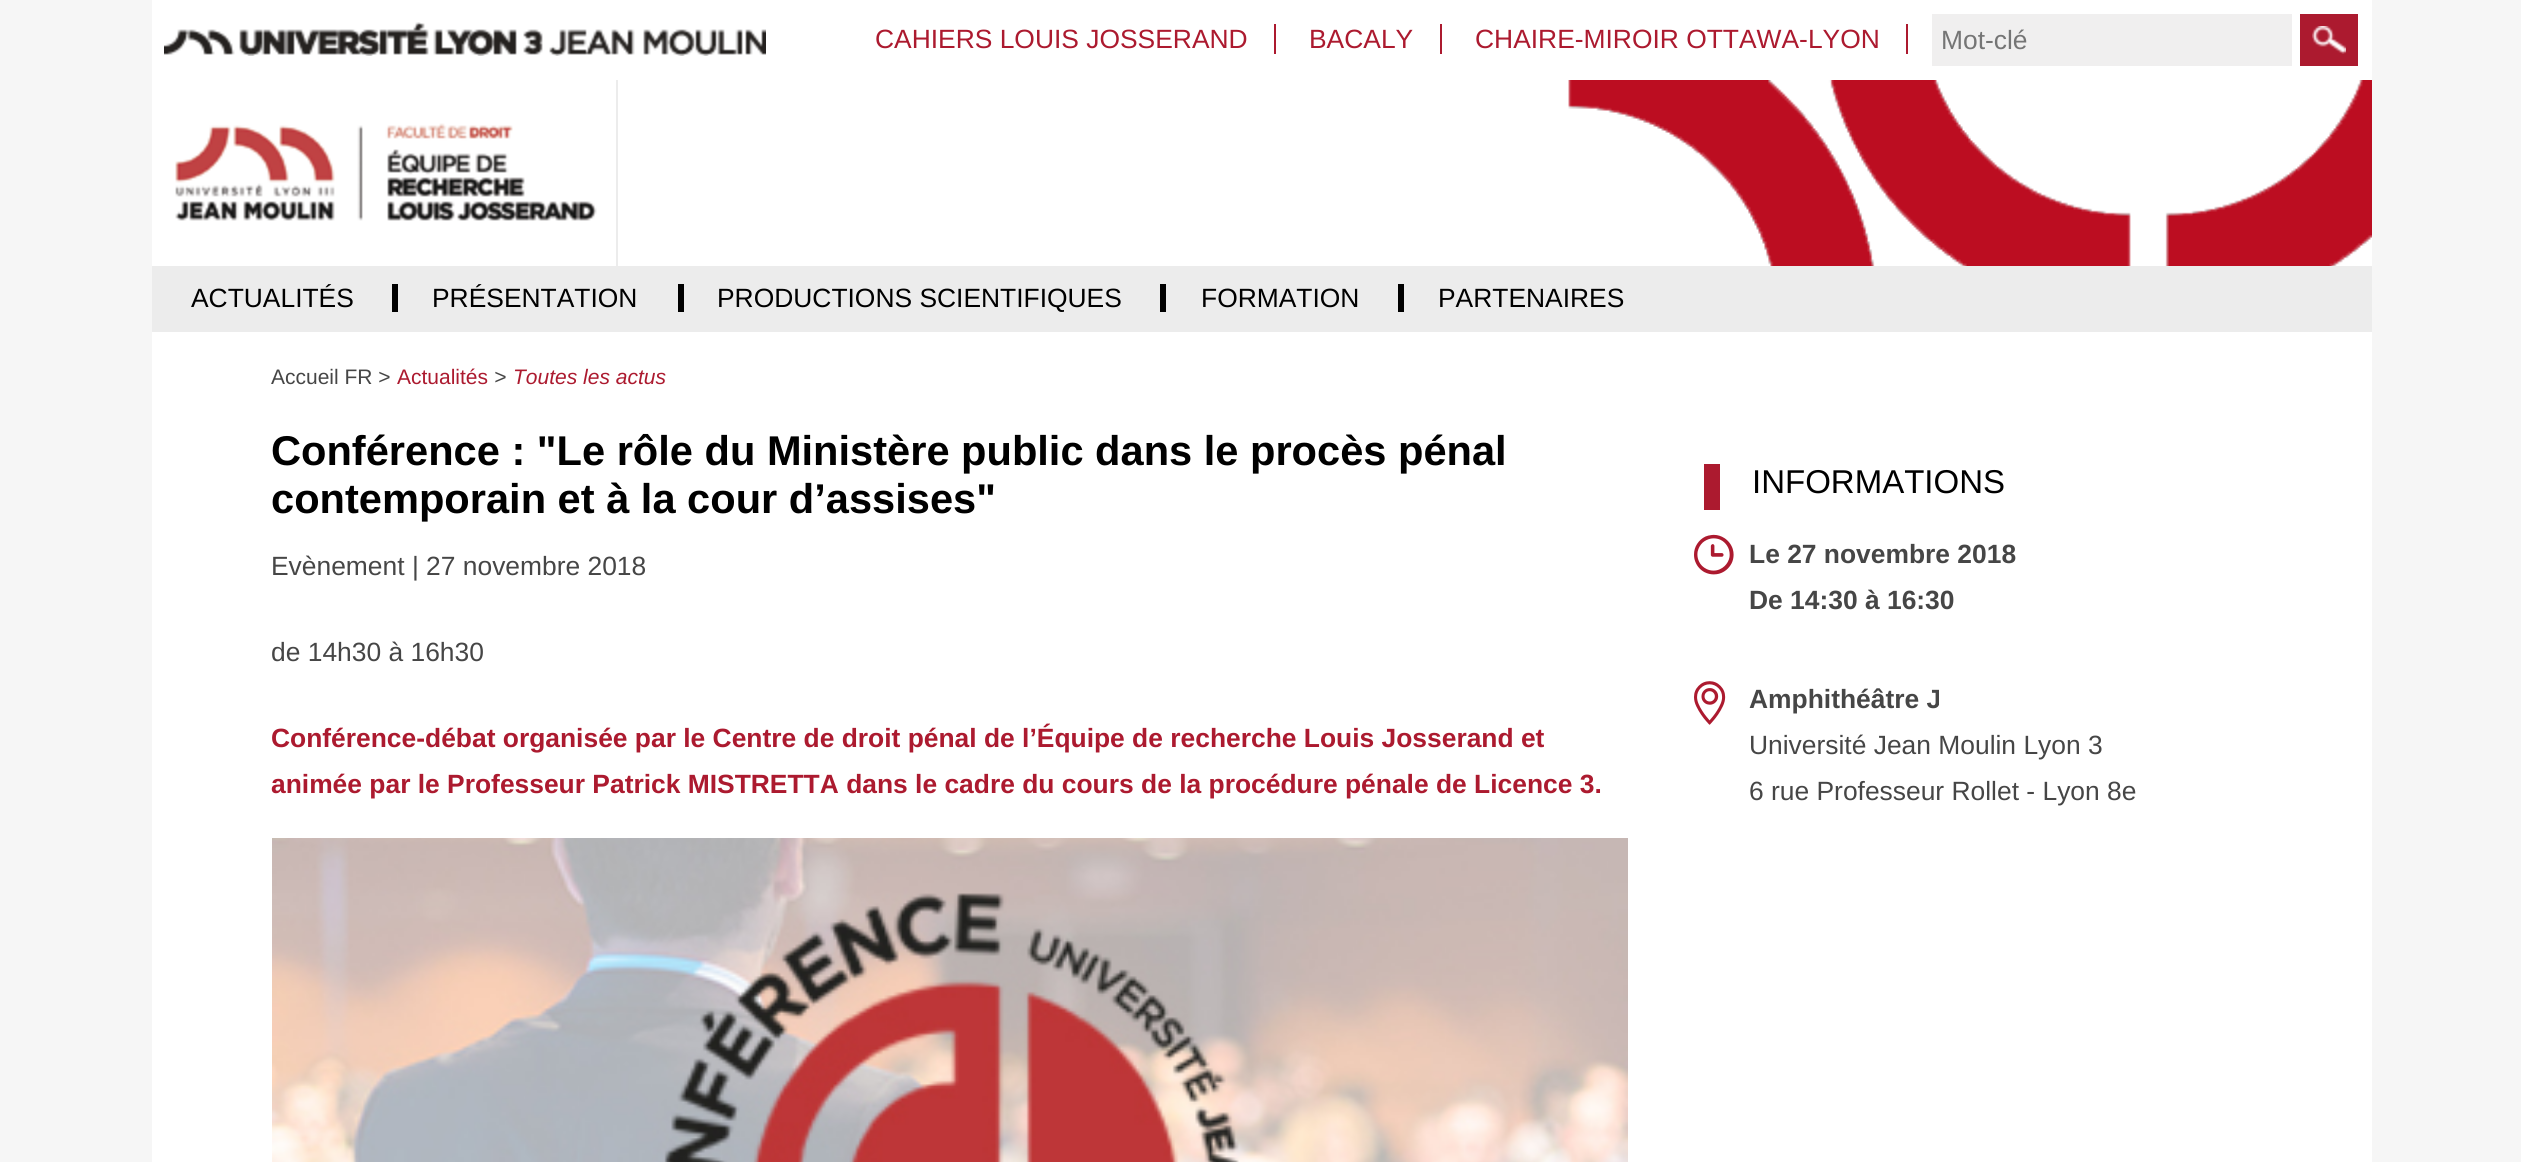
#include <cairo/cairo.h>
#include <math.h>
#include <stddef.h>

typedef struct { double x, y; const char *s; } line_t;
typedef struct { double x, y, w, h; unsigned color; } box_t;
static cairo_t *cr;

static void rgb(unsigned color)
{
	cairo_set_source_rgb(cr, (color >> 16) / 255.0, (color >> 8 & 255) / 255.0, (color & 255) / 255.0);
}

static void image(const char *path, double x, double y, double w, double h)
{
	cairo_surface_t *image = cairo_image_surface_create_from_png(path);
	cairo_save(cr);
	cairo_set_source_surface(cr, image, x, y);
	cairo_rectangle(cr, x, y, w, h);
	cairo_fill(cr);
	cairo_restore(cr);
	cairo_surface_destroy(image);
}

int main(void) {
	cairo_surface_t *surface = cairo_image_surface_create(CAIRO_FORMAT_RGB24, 2521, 1162);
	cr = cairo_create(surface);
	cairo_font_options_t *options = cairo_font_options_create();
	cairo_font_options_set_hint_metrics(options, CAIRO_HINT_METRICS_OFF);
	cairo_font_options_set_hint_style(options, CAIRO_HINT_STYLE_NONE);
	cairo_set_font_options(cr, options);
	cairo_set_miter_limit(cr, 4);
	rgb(0xf6f6f6);
	cairo_paint(cr);
	rgb(0xffffff);
	cairo_rectangle(cr, 152, 0, 2220, 266);
	cairo_fill(cr);
	image("img/1.png", 164, 22, 602, 34);
	{
		static const box_t items[] = {
			{1274, 24, 2, 30, 0xac1a2f},
			{1440, 24, 2, 30, 0xac1a2f},
			{1906, 24, 2, 30, 0xac1a2f},
			{1932, 14, 360, 52, 0xf0efef},
			{2300, 14, 58, 52, 0xac1a2f},
		};
		for (size_t i = 0; i < sizeof items / sizeof *items; i++) {
			rgb(items[i].color);
			cairo_rectangle(cr, items[i].x, items[i].y, items[i].w, items[i].h);
			cairo_fill(cr);
		}
	}
	image("img/2.png", 2312, 26, 34, 28);
	rgb(0xececec);
	cairo_rectangle(cr, 616, 80, 2, 186);
	cairo_fill(cr);
	image("img/3.png", 175, 123, 422, 98);
	image("img/4.png", 1568, 80, 804, 186);
	{
		static const box_t items[] = {
			{152, 266, 2220, 66, 0xececec},
			{392, 284, 6, 28, 0x000000},
			{678, 284, 6, 28, 0x000000},
			{1160, 284, 6, 28, 0x000000},
			{1398, 284, 6, 28, 0x000000},
			{152, 332, 2220, 830, 0xffffff},
		};
		for (size_t i = 0; i < sizeof items / sizeof *items; i++) {
			rgb(items[i].color);
			cairo_rectangle(cr, items[i].x, items[i].y, items[i].w, items[i].h);
			cairo_fill(cr);
		}
	}
	image("img/5.png", 272, 838, 1356, 324);
	rgb(0xac1a2f);
	cairo_rectangle(cr, 1704, 464, 16, 46);
	cairo_fill(cr);
	image("img/6.png", 1694, 534, 40, 41);
	image("img/7.png", 1694, 681, 32, 44);
	cairo_select_font_face(cr, "Liberation Sans", CAIRO_FONT_SLANT_NORMAL, CAIRO_FONT_WEIGHT_NORMAL);
	cairo_set_font_size(cr, 26.4);
	{
		static const line_t items[] = {
			{875, 48, "CAHIERS LOUIS JOSSERAND"},
			{1309, 48, "BACALY"},
			{1475, 48, "CHAIRE-MIROIR OTTAWA-LYON"},
		};
		for (size_t i = 0; i < sizeof items / sizeof *items; i++) {
			cairo_move_to(cr, items[i].x, items[i].y);
			cairo_show_text(cr, items[i].s);
		}
	}
	rgb(0x757575);
	cairo_move_to(cr, 1941, 49);
	cairo_show_text(cr, "Mot-clé");
	rgb(0x000000);
	{
		static const line_t items[] = {
			{191, 307, "ACTUALITÉS"},
			{432, 307, "PRÉSENTATION"},
			{717, 307, "PRODUCTIONS SCIENTIFIQUES"},
			{1201, 307, "FORMATION"},
			{1438, 307, "PARTENAIRES"},
		};
		for (size_t i = 0; i < sizeof items / sizeof *items; i++) {
			cairo_move_to(cr, items[i].x, items[i].y);
			cairo_show_text(cr, items[i].s);
		}
	}
	cairo_set_font_size(cr, 21);
	rgb(0x464646);
	cairo_move_to(cr, 271, 384);
	cairo_show_text(cr, "Accueil FR >");
	rgb(0xac1a2f);
	cairo_move_to(cr, 397, 384);
	cairo_show_text(cr, "Actualités");
	cairo_select_font_face(cr, "Liberation Sans", CAIRO_FONT_SLANT_ITALIC, CAIRO_FONT_WEIGHT_NORMAL);
	rgb(0x464646);
	cairo_move_to(cr, 494, 384);
	cairo_show_text(cr, ">");
	rgb(0xac1a2f);
	cairo_move_to(cr, 513, 384);
	cairo_show_text(cr, "Toutes les actus");
	cairo_select_font_face(cr, "Liberation Sans", CAIRO_FONT_SLANT_NORMAL, CAIRO_FONT_WEIGHT_BOLD);
	cairo_set_font_size(cr, 41.6);
	rgb(0x000000);
	cairo_move_to(cr, 271, 465);
	cairo_show_text(cr, "Conférence : \"Le rôle du Ministère public dans le procès pénal");
	cairo_move_to(cr, 271, 513);
	cairo_show_text(cr, "contemporain et à la cour d’assises\"");
	cairo_select_font_face(cr, "Liberation Sans", CAIRO_FONT_SLANT_NORMAL, CAIRO_FONT_WEIGHT_NORMAL);
	cairo_set_font_size(cr, 26.4);
	rgb(0x464646);
	cairo_move_to(cr, 271, 575);
	cairo_show_text(cr, "Evènement | 27 novembre 2018");
	cairo_move_to(cr, 271, 661);
	cairo_show_text(cr, "de 14h30 à 16h30");
	cairo_select_font_face(cr, "Liberation Sans", CAIRO_FONT_SLANT_NORMAL, CAIRO_FONT_WEIGHT_BOLD);
	rgb(0xac1a2f);
	cairo_move_to(cr, 271, 747);
	cairo_show_text(cr, "Conférence-débat organisée par le Centre de droit pénal de l’Équipe de recherche Louis Josserand et");
	cairo_move_to(cr, 271, 793);
	cairo_show_text(cr, "animée par le Professeur Patrick MISTRETTA dans le cadre du cours de la procédure pénale de Licence 3.");
	cairo_select_font_face(cr, "Liberation Sans", CAIRO_FONT_SLANT_NORMAL, CAIRO_FONT_WEIGHT_NORMAL);
	cairo_set_font_size(cr, 33);
	rgb(0x000000);
	cairo_move_to(cr, 1752, 493);
	cairo_show_text(cr, "INFORMATIONS");
	cairo_select_font_face(cr, "Liberation Sans", CAIRO_FONT_SLANT_NORMAL, CAIRO_FONT_WEIGHT_BOLD);
	cairo_set_font_size(cr, 26.4);
	rgb(0x464646);
	{
		static const line_t items[] = {
			{1749, 563, "Le 27 novembre 2018"},
			{1749, 609, "De 14:30 à 16:30"},
			{1749, 708, "Amphithéâtre J"},
		};
		for (size_t i = 0; i < sizeof items / sizeof *items; i++) {
			cairo_move_to(cr, items[i].x, items[i].y);
			cairo_show_text(cr, items[i].s);
		}
	}
	cairo_select_font_face(cr, "Liberation Sans", CAIRO_FONT_SLANT_NORMAL, CAIRO_FONT_WEIGHT_NORMAL);
	cairo_move_to(cr, 1749, 754);
	cairo_show_text(cr, "Université Jean Moulin Lyon 3");
	cairo_move_to(cr, 1749, 800);
	cairo_show_text(cr, "6 rue Professeur Rollet - Lyon 8e");
	cairo_surface_write_to_png(surface, "page.png");
	cairo_font_options_destroy(options);
	cairo_destroy(cr);
	cairo_surface_destroy(surface);
	return 0;
}
